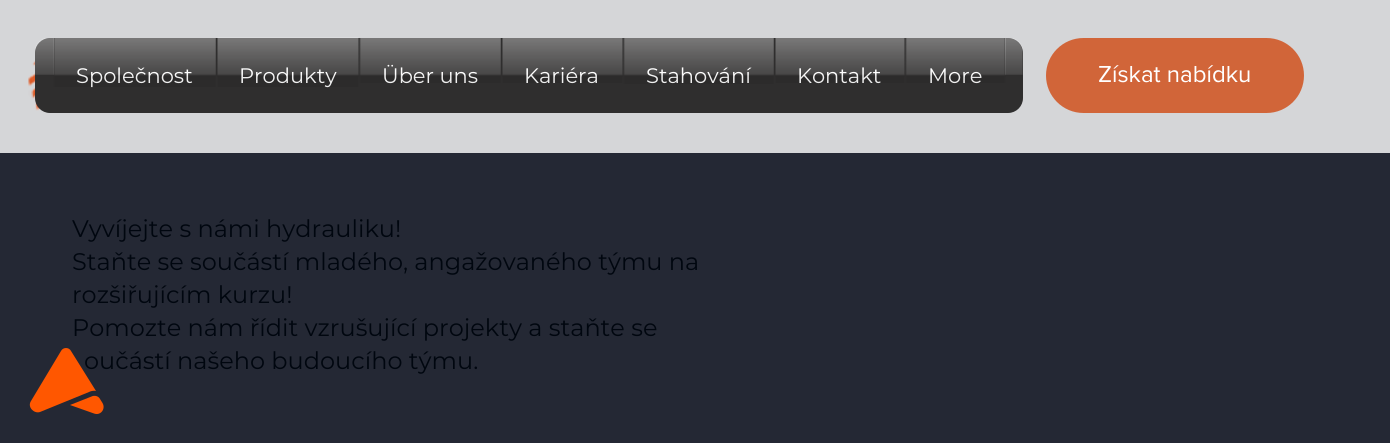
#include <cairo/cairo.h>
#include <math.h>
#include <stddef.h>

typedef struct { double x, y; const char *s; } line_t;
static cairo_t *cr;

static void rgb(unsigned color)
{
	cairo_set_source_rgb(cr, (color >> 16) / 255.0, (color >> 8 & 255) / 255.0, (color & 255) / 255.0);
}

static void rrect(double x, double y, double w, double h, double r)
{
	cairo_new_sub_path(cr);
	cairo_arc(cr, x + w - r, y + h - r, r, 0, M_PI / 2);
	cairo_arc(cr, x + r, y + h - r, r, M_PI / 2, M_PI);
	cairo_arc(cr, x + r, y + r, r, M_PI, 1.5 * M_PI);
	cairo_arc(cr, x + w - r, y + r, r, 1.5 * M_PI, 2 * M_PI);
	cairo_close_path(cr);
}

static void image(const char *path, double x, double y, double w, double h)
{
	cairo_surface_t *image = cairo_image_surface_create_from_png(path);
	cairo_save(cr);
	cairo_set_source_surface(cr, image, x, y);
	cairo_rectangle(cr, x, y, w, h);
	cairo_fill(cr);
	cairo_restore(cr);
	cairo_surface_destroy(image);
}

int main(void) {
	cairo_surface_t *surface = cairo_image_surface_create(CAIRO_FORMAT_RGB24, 1390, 443);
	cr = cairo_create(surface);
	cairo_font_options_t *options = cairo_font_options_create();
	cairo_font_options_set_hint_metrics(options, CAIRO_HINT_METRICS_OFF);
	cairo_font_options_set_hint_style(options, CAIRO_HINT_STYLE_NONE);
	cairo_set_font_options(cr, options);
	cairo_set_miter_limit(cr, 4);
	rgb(0x242834);
	cairo_paint(cr);
	rgb(0xd5d6d8);
	cairo_rectangle(cr, 0, 0, 1390, 153);
	cairo_fill(cr);
	image("img/1.png", 28, 61, 12, 50);
	rgb(0x2f2e2e);
	rrect(35, 38, 988, 75, 15);
	cairo_fill(cr);
	image("img/2.png", 35, 38, 988, 37);
	cairo_rectangle(cr, 54, 38, 951, 37);
	cairo_fill(cr);
	rgb(0xd16539);
	rrect(1046, 38, 258, 75, 37.5);
	cairo_fill(cr);
	cairo_select_font_face(cr, "Montserrat", CAIRO_FONT_SLANT_NORMAL, CAIRO_FONT_WEIGHT_NORMAL);
	cairo_set_font_size(cr, 21);
	rgb(0xffffff);
	cairo_move_to(cr, 76, 83);
	cairo_show_text(cr, "Společnost");
	image("img/3.png", 53, 38, 163, 49);
	cairo_move_to(cr, 239, 83);
	cairo_show_text(cr, "Produkty");
	image("img/4.png", 217, 37, 142, 50);
	cairo_move_to(cr, 382, 83);
	cairo_show_text(cr, "Über uns");
	image("img/5.png", 359, 38, 142, 45);
	cairo_move_to(cr, 524, 83);
	cairo_show_text(cr, "Kariéra");
	image("img/6.png", 502, 38, 121, 45);
	cairo_move_to(cr, 646, 83);
	cairo_show_text(cr, "Stahování");
	image("img/7.png", 623, 38, 151, 46);
	cairo_move_to(cr, 797, 83);
	cairo_show_text(cr, "Kontakt");
	image("img/8.png", 775, 38, 130, 45);
	cairo_move_to(cr, 928, 83);
	cairo_show_text(cr, "More");
	image("img/9.png", 905, 38, 101, 45);
	cairo_select_font_face(cr, "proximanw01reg", CAIRO_FONT_SLANT_NORMAL, CAIRO_FONT_WEIGHT_NORMAL);
	cairo_set_font_size(cr, 24);
	cairo_move_to(cr, 1098, 82);
	cairo_show_text(cr, "Získat nabídku");
	cairo_select_font_face(cr, "Montserrat", CAIRO_FONT_SLANT_NORMAL, CAIRO_FONT_WEIGHT_NORMAL);
	rgb(0x00060f);
	{
		static const line_t items[] = {
			{72, 237, "Vyvíjejte s námi hydrauliku!"},
			{72, 270, "Staňte se součástí mladého, angažovaného týmu na"},
			{72, 303, "rozšiřujícím kurzu!"},
			{72, 336, "Pomozte nám řídit vzrušující projekty a staňte se"},
			{84, 369, "oučástí našeho budoucího týmu."},
		};
		for (size_t i = 0; i < sizeof items / sizeof *items; i++) {
			cairo_move_to(cr, items[i].x, items[i].y);
			cairo_show_text(cr, items[i].s);
		}
	}
	rgb(0xff5700);
	cairo_new_path(cr);
	cairo_move_to(cr, 96, 391);
	cairo_line_to(cr, 71, 351);
	cairo_curve_to(cr, 69, 347, 63, 347, 61, 351);
	cairo_line_to(cr, 31, 401);
	cairo_curve_to(cr, 27, 407, 34, 414, 40, 412);
	cairo_line_to(cr, 89, 392);
	cairo_curve_to(cr, 93, 390, 96, 391, 96, 391);
	cairo_close_path(cr);
	cairo_fill(cr);
	cairo_new_path(cr);
	cairo_move_to(cr, 102.5, 403);
	cairo_line_to(cr, 100, 399);
	cairo_curve_to(cr, 98.5, 396, 94.5, 395, 91.5, 396.5);
	cairo_line_to(cr, 70, 405);
	cairo_line_to(cr, 94, 413.5);
	cairo_curve_to(cr, 100.5, 416, 106, 409, 102.5, 403);
	cairo_close_path(cr);
	cairo_fill(cr);
	cairo_surface_write_to_png(surface, "page.png");
	cairo_font_options_destroy(options);
	cairo_destroy(cr);
	cairo_surface_destroy(surface);
	return 0;
}
